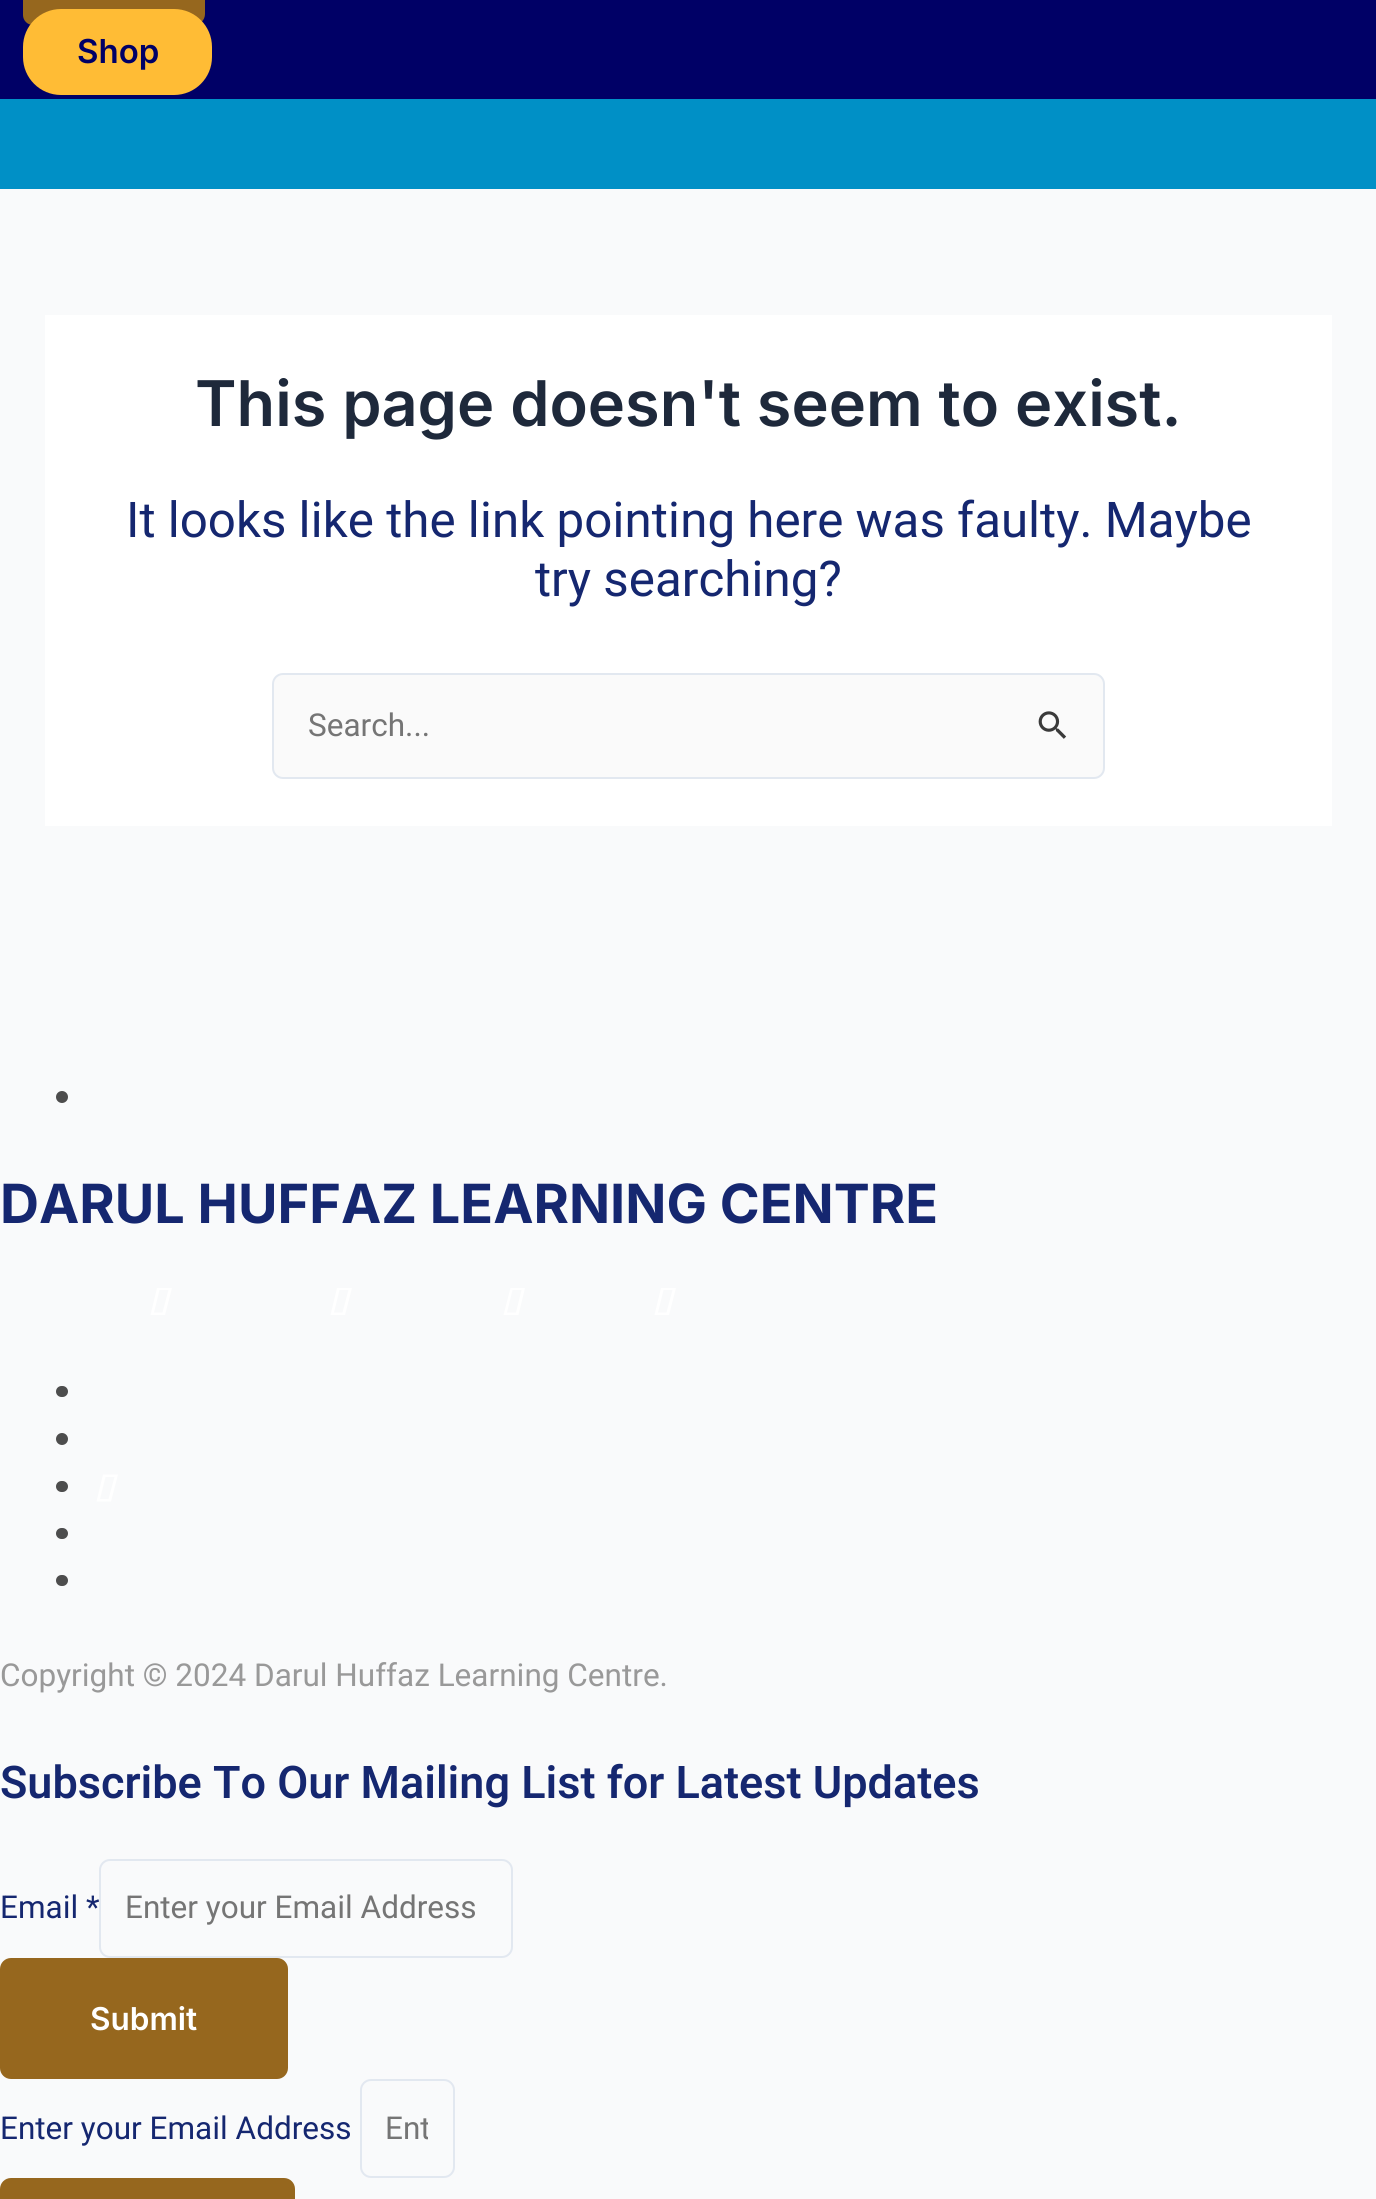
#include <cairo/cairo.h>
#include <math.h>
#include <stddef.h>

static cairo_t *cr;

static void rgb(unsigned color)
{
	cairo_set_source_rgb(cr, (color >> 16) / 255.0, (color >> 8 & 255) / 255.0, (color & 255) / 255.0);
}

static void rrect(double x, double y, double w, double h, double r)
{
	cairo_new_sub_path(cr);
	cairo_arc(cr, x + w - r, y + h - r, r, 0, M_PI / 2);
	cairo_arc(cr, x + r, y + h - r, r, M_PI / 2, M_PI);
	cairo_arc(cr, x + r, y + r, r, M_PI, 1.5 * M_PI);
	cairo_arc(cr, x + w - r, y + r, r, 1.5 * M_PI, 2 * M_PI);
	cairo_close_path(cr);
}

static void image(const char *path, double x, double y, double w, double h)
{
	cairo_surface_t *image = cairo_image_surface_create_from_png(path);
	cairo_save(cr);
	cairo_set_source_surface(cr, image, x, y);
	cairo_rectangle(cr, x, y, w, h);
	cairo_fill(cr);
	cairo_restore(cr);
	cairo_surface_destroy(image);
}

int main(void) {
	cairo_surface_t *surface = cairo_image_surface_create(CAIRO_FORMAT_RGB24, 1376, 2199);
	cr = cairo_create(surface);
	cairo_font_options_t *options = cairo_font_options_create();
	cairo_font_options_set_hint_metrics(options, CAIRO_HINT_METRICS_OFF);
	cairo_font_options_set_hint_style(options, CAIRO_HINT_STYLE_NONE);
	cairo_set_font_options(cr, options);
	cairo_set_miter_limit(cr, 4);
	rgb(0xf9fafb);
	cairo_paint(cr);
	rgb(0x000066);
	cairo_rectangle(cr, 0, 0, 1376, 99);
	cairo_fill(cr);
	rgb(0x96671e);
	cairo_new_path(cr);
	cairo_move_to(cr, 33, -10);
	cairo_line_to(cr, 43, -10);
	cairo_line_to(cr, 43, 25);
	cairo_line_to(cr, 33, 25);
	cairo_curve_to(cr, 27.5, 25, 23, 20.5, 23, 15);
	cairo_line_to(cr, 23, 0);
	cairo_curve_to(cr, 23, -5.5, 27.5, -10, 33, -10);
	cairo_close_path(cr);
	cairo_fill(cr);
	cairo_rectangle(cr, 43, 0, 22, 14);
	cairo_fill(cr);
	cairo_rectangle(cr, 65, 0, 72, 9);
	cairo_fill(cr);
	cairo_new_path(cr);
	cairo_move_to(cr, 137, -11);
	cairo_line_to(cr, 194, -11);
	cairo_curve_to(cr, 200, -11, 205, -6, 205, 0);
	cairo_line_to(cr, 205, 14);
	cairo_curve_to(cr, 205, 20, 200, 25, 194, 25);
	cairo_line_to(cr, 137, 25);
	cairo_close_path(cr);
	cairo_fill(cr);
	rgb(0xffbc35);
	rrect(23, 9, 189, 86, 38);
	cairo_fill(cr);
	rgb(0x0090c6);
	cairo_rectangle(cr, 0, 99, 1376, 90);
	cairo_fill(cr);
	rgb(0xffffff);
	cairo_rectangle(cr, 45, 315, 1287, 511);
	cairo_fill(cr);
	rgb(0xfafafa);
	rrect(273, 674, 831, 104, 10);
	cairo_fill_preserve(cr);
	rgb(0xe2e8f0);
	cairo_stroke(cr);
	image("img/1.png", 1038, 711, 29, 28);
	rgb(0x4d4d4d);
	cairo_arc(cr, 62, 1097, 6, 0, 2 * M_PI);
	cairo_fill(cr);
	rgb(0xffffff);
	cairo_new_path(cr);
	cairo_move_to(cr, 150.5, 1315);
	cairo_line_to(cr, 157, 1288);
	cairo_line_to(cr, 172, 1288);
	cairo_line_to(cr, 165, 1315);
	cairo_close_path(cr);
	cairo_move_to(cr, 154, 1312.5);
	cairo_line_to(cr, 162.5, 1312.5);
	cairo_line_to(cr, 168.5, 1290);
	cairo_line_to(cr, 159.5, 1290);
	cairo_close_path(cr);
	cairo_fill(cr);
	cairo_new_path(cr);
	cairo_move_to(cr, 330.5, 1315);
	cairo_line_to(cr, 337, 1288);
	cairo_line_to(cr, 352, 1288);
	cairo_line_to(cr, 345, 1315);
	cairo_close_path(cr);
	cairo_move_to(cr, 334, 1312.5);
	cairo_line_to(cr, 342.5, 1312.5);
	cairo_line_to(cr, 348.5, 1290);
	cairo_line_to(cr, 339.5, 1290);
	cairo_close_path(cr);
	cairo_fill(cr);
	cairo_new_path(cr);
	cairo_move_to(cr, 503.5, 1315);
	cairo_line_to(cr, 510.5, 1288);
	cairo_line_to(cr, 525, 1288);
	cairo_line_to(cr, 518.5, 1315);
	cairo_close_path(cr);
	cairo_move_to(cr, 507, 1312.5);
	cairo_line_to(cr, 516, 1312.5);
	cairo_line_to(cr, 521.5, 1290);
	cairo_line_to(cr, 512.5, 1290);
	cairo_close_path(cr);
	cairo_fill(cr);
	cairo_new_path(cr);
	cairo_move_to(cr, 654.5, 1315);
	cairo_line_to(cr, 661, 1288);
	cairo_line_to(cr, 676, 1288);
	cairo_line_to(cr, 669, 1315);
	cairo_close_path(cr);
	cairo_move_to(cr, 658, 1312.5);
	cairo_line_to(cr, 666.5, 1312.5);
	cairo_line_to(cr, 672.5, 1290);
	cairo_line_to(cr, 663.5, 1290);
	cairo_close_path(cr);
	cairo_fill(cr);
	rgb(0x4d4d4d);
	rrect(56, 1386, 12, 11, 5.5);
	cairo_fill(cr);
	cairo_arc(cr, 62, 1439, 6, 0, 2 * M_PI);
	cairo_fill(cr);
	rrect(56, 1481, 12, 11, 5.5);
	cairo_fill(cr);
	rgb(0xffffff);
	cairo_new_path(cr);
	cairo_move_to(cr, 96.5, 1501.5);
	cairo_line_to(cr, 103, 1474.5);
	cairo_line_to(cr, 118, 1474.5);
	cairo_line_to(cr, 111, 1501.5);
	cairo_close_path(cr);
	cairo_move_to(cr, 100, 1499);
	cairo_line_to(cr, 108.5, 1499);
	cairo_line_to(cr, 114.5, 1477);
	cairo_line_to(cr, 105.5, 1477);
	cairo_close_path(cr);
	cairo_fill(cr);
	rgb(0x4d4d4d);
	rrect(56, 1528, 12, 11, 5.5);
	cairo_fill(cr);
	rrect(56, 1575, 12, 11, 5.5);
	cairo_fill(cr);
	rgb(0x96671e);
	rrect(0, 1958, 288, 121, 11);
	cairo_fill(cr);
	rrect(361, 2080, 93, 97, 10);
	rgb(0xe2e8f0);
	cairo_stroke(cr);
	rgb(0x96671e);
	rrect(0, 2178, 295, 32, 11);
	cairo_fill(cr);
	cairo_select_font_face(cr, "Inter SemiBold", CAIRO_FONT_SLANT_NORMAL, CAIRO_FONT_WEIGHT_NORMAL);
	cairo_set_font_size(cr, 33);
	rgb(0x000066);
	cairo_move_to(cr, 77, 63);
	cairo_show_text(cr, "Shop");
	cairo_set_font_size(cr, 63);
	rgb(0x1e293b);
	cairo_move_to(cr, 195, 426);
	cairo_show_text(cr, "This page doesn't seem to exist.");
	cairo_select_font_face(cr, "Heebo", CAIRO_FONT_SLANT_NORMAL, CAIRO_FONT_WEIGHT_NORMAL);
	cairo_set_font_size(cr, 49.25);
	rgb(0x152770);
	cairo_move_to(cr, 126, 537);
	cairo_show_text(cr, "It looks like the link pointing here was faulty. Maybe");
	cairo_move_to(cr, 535, 596);
	cairo_show_text(cr, "try searching?");
	cairo_set_font_size(cr, 31.5);
	rgb(0x757575);
	cairo_move_to(cr, 308, 736);
	cairo_show_text(cr, "Search...");
	cairo_select_font_face(cr, "Inter", CAIRO_FONT_SLANT_NORMAL, CAIRO_FONT_WEIGHT_BOLD);
	cairo_set_font_size(cr, 54);
	rgb(0x152770);
	cairo_move_to(cr, 0, 1223);
	cairo_show_text(cr, "DARUL HUFFAZ LEARNING CENTRE");
	cairo_select_font_face(cr, "Heebo", CAIRO_FONT_SLANT_NORMAL, CAIRO_FONT_WEIGHT_NORMAL);
	cairo_set_font_size(cr, 31.5);
	rgb(0x999999);
	cairo_move_to(cr, 0, 1686);
	cairo_show_text(cr, "Copyright © 2024 Darul Huffaz Learning Centre.");
	cairo_select_font_face(cr, "Heebo SemiBold", CAIRO_FONT_SLANT_NORMAL, CAIRO_FONT_WEIGHT_NORMAL);
	cairo_set_font_size(cr, 45);
	rgb(0x152770);
	cairo_move_to(cr, 0, 1798);
	cairo_show_text(cr, "Subscribe To Our Mailing List for Latest Updates");
	cairo_select_font_face(cr, "Heebo", CAIRO_FONT_SLANT_NORMAL, CAIRO_FONT_WEIGHT_NORMAL);
	cairo_set_font_size(cr, 31.5);
	cairo_move_to(cr, 0, 1918);
	cairo_show_text(cr, "Email *");
	rgb(0xf9fafb);
	rrect(100, 1860, 412, 97, 10);
	cairo_fill_preserve(cr);
	rgb(0xe2e8f0);
	cairo_stroke(cr);
	rgb(0x757575);
	cairo_move_to(cr, 125, 1918);
	cairo_show_text(cr, "Enter your Email Address");
	cairo_select_font_face(cr, "Inter SemiBold", CAIRO_FONT_SLANT_NORMAL, CAIRO_FONT_WEIGHT_NORMAL);
	rgb(0xffffff);
	cairo_move_to(cr, 90, 2030);
	cairo_show_text(cr, "Submit");
	cairo_select_font_face(cr, "Heebo", CAIRO_FONT_SLANT_NORMAL, CAIRO_FONT_WEIGHT_NORMAL);
	rgb(0x152770);
	cairo_move_to(cr, 0, 2139);
	cairo_show_text(cr, "Enter your Email Address");
	cairo_save(cr);
	cairo_rectangle(cr, 385, 2106, 43, 47);
	cairo_clip(cr);
	rgb(0x757575);
	cairo_move_to(cr, 385, 2139);
	cairo_show_text(cr, "Ent");
	cairo_restore(cr);
	cairo_surface_write_to_png(surface, "page.png");
	cairo_font_options_destroy(options);
	cairo_destroy(cr);
	cairo_surface_destroy(surface);
	return 0;
}
